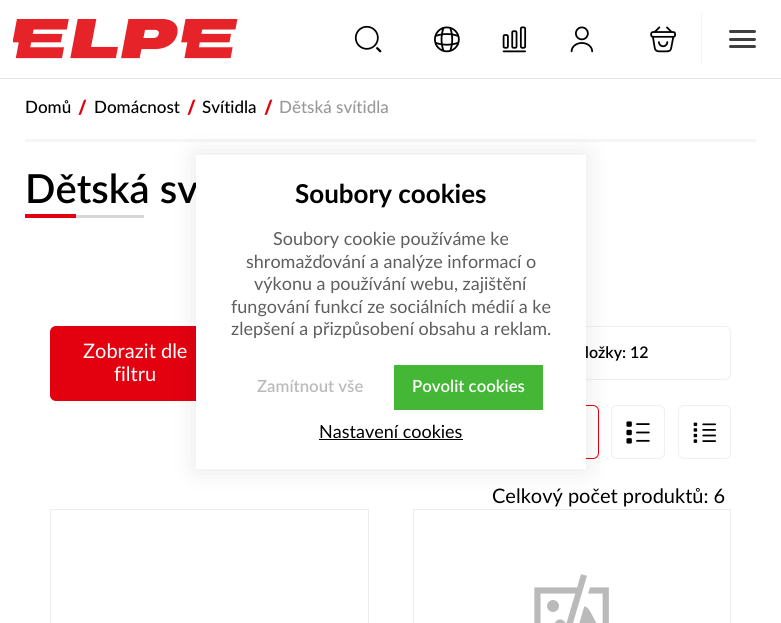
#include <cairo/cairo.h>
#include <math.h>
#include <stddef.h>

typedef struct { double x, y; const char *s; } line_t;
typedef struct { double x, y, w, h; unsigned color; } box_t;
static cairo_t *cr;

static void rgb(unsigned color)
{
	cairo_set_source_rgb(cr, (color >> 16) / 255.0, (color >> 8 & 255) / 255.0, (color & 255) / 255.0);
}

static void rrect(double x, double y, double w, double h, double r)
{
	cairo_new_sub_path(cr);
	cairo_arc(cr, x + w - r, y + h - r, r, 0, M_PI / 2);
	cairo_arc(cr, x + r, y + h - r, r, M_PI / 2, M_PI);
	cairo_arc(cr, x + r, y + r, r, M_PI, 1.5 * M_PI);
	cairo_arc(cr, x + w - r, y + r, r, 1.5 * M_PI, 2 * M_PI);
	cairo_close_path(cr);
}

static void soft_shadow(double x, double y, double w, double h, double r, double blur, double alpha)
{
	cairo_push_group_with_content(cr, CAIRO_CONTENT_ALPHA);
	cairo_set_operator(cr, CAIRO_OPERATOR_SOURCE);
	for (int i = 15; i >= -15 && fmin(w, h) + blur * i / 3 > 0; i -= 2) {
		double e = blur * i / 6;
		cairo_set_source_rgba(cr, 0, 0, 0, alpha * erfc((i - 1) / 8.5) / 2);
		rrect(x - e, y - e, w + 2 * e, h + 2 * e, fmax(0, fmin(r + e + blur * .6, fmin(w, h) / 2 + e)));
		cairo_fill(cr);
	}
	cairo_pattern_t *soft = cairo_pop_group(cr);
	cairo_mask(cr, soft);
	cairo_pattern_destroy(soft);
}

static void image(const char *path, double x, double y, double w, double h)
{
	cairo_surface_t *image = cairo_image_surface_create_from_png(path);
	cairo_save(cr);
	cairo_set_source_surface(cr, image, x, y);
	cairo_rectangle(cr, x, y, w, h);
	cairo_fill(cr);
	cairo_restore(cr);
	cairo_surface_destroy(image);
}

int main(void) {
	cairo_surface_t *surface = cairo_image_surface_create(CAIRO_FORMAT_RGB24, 781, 623);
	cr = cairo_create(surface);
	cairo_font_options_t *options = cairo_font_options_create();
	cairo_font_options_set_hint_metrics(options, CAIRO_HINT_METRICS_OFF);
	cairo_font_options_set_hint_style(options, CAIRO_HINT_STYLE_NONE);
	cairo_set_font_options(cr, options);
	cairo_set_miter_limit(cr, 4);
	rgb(0xffffff);
	cairo_paint(cr);
	rgb(0xe8e8e8);
	cairo_rectangle(cr, 0, 78, 781, 1);
	cairo_fill(cr);
	image("img/1.png", 13, 19, 225, 40);
	image("img/2.png", 354, 25, 28, 28);
	image("img/3.png", 434, 26, 26, 27);
	image("img/4.png", 502, 26, 25, 27);
	image("img/5.png", 570, 26, 23, 27);
	image("img/6.png", 650, 26, 26, 27);
	rgb(0xf2f4f8);
	cairo_rectangle(cr, 701, 13, 1, 52);
	cairo_fill(cr);
	rgb(0x3f3f3f);
	rrect(729, 30, 27, 3, 1.5);
	cairo_fill(cr);
	rrect(729, 38, 27, 3, 1.5);
	cairo_fill(cr);
	rrect(729, 45, 27, 3, 1.5);
	cairo_fill(cr);
	{
		static const box_t items[] = {
			{25, 139, 731, 3, 0xf5f5f5},
			{25, 214, 51, 4, 0xe3000f},
			{76, 215, 68, 3, 0xd6d6d6},
		};
		for (size_t i = 0; i < sizeof items / sizeof *items; i++) {
			rgb(items[i].color);
			cairo_rectangle(cr, items[i].x, items[i].y, items[i].w, items[i].h);
			cairo_fill(cr);
		}
	}
	rgb(0xe3000f);
	rrect(50, 326, 170, 75, 6);
	cairo_fill(cr);
	rrect(544.5, 326.5, 186, 53, 5.5);
	rgb(0xefefef);
	cairo_set_line_width(cr, 1);
	cairo_stroke(cr);
	rrect(545.5, 405.5, 53, 53, 5.5);
	rgb(0xe3000f);
	cairo_stroke(cr);
	rrect(611.5, 405.5, 53, 53, 5.5);
	rgb(0xefefef);
	cairo_stroke(cr);
	image("img/7.png", 626, 421, 24, 23);
	rrect(678.5, 405.5, 52, 53, 5.5);
	cairo_stroke(cr);
	image("img/8.png", 693, 422, 23, 21);
	cairo_rectangle(cr, 50.5, 509.5, 318, 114);
	rgb(0xededed);
	cairo_stroke(cr);
	cairo_rectangle(cr, 413.5, 509.5, 317, 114);
	cairo_stroke(cr);
	image("img/9.png", 534, 574, 75, 49);
	rgb(0x000000);
	soft_shadow(196, 155, 390, 314, 0, 12.5, 0.1);
	cairo_select_font_face(cr, "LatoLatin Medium", CAIRO_FONT_SLANT_NORMAL, CAIRO_FONT_WEIGHT_NORMAL);
	cairo_set_font_size(cr, 17);
	rgb(0x000000);
	cairo_move_to(cr, 25, 113);
	cairo_show_text(cr, "Domů");
	cairo_select_font_face(cr, "LatoLatin Black", CAIRO_FONT_SLANT_NORMAL, CAIRO_FONT_WEIGHT_NORMAL);
	cairo_set_font_size(cr, 19);
	rgb(0xe3000f);
	cairo_save(cr);
	cairo_translate(cr, 78, 114);
	cairo_rotate(cr, -1 * M_PI / 180);
	cairo_move_to(cr, 0, 0);
	cairo_show_text(cr, "/");
	cairo_restore(cr);
	cairo_select_font_face(cr, "LatoLatin Medium", CAIRO_FONT_SLANT_NORMAL, CAIRO_FONT_WEIGHT_NORMAL);
	cairo_set_font_size(cr, 17);
	rgb(0x000000);
	cairo_move_to(cr, 94, 113);
	cairo_show_text(cr, "Domácnost");
	cairo_select_font_face(cr, "LatoLatin Black", CAIRO_FONT_SLANT_NORMAL, CAIRO_FONT_WEIGHT_NORMAL);
	cairo_set_font_size(cr, 19);
	rgb(0xe3000f);
	cairo_save(cr);
	cairo_translate(cr, 187, 114);
	cairo_rotate(cr, -1 * M_PI / 180);
	cairo_move_to(cr, 0, 0);
	cairo_show_text(cr, "/");
	cairo_restore(cr);
	cairo_select_font_face(cr, "LatoLatin Medium", CAIRO_FONT_SLANT_NORMAL, CAIRO_FONT_WEIGHT_NORMAL);
	cairo_set_font_size(cr, 17);
	rgb(0x000000);
	cairo_move_to(cr, 202, 113);
	cairo_show_text(cr, "Svítidla");
	cairo_select_font_face(cr, "LatoLatin Black", CAIRO_FONT_SLANT_NORMAL, CAIRO_FONT_WEIGHT_NORMAL);
	cairo_set_font_size(cr, 19);
	rgb(0xe3000f);
	cairo_save(cr);
	cairo_translate(cr, 264, 114);
	cairo_rotate(cr, -1 * M_PI / 180);
	cairo_move_to(cr, 0, 0);
	cairo_show_text(cr, "/");
	cairo_restore(cr);
	cairo_select_font_face(cr, "LatoLatin Medium", CAIRO_FONT_SLANT_NORMAL, CAIRO_FONT_WEIGHT_NORMAL);
	cairo_set_font_size(cr, 17);
	rgb(0x999999);
	cairo_move_to(cr, 279, 113);
	cairo_show_text(cr, "Dětská svítidla");
	cairo_select_font_face(cr, "LatoLatin SemiBold", CAIRO_FONT_SLANT_NORMAL, CAIRO_FONT_WEIGHT_NORMAL);
	cairo_set_font_size(cr, 40);
	rgb(0x000000);
	cairo_move_to(cr, 25, 203);
	cairo_show_text(cr, "Dětská sv");
	cairo_select_font_face(cr, "LatoLatin", CAIRO_FONT_SLANT_NORMAL, CAIRO_FONT_WEIGHT_NORMAL);
	cairo_set_font_size(cr, 20);
	rgb(0xffffff);
	cairo_move_to(cr, 83, 358);
	cairo_show_text(cr, "Zobrazit dle");
	cairo_move_to(cr, 114, 381);
	cairo_show_text(cr, "filtru");
	cairo_select_font_face(cr, "LatoLatin SemiBold", CAIRO_FONT_SLANT_NORMAL, CAIRO_FONT_WEIGHT_NORMAL);
	cairo_set_font_size(cr, 16);
	rgb(0x000000);
	cairo_move_to(cr, 585, 358);
	cairo_show_text(cr, "ložky: 12");
	cairo_select_font_face(cr, "LatoLatin", CAIRO_FONT_SLANT_NORMAL, CAIRO_FONT_WEIGHT_NORMAL);
	cairo_set_font_size(cr, 20);
	cairo_move_to(cr, 492, 503);
	cairo_show_text(cr, "Celkový počet produktů: 6");
	rgb(0xffffff);
	cairo_rectangle(cr, 196, 155, 390, 314);
	cairo_fill(cr);
	cairo_select_font_face(cr, "LatoLatin", CAIRO_FONT_SLANT_NORMAL, CAIRO_FONT_WEIGHT_BOLD);
	cairo_set_font_size(cr, 26);
	rgb(0x000000);
	cairo_move_to(cr, 295, 203);
	cairo_show_text(cr, "Soubory cookies");
	cairo_select_font_face(cr, "LatoLatin", CAIRO_FONT_SLANT_NORMAL, CAIRO_FONT_WEIGHT_NORMAL);
	cairo_set_font_size(cr, 18);
	rgb(0x5e5e5e);
	{
		static const line_t items[] = {
			{273, 245, "Soubory cookie používáme ke"},
			{246, 268, "shromažďování a analýze informací o"},
			{254, 290, "výkonu a používání webu, zajištění"},
			{231, 313, "fungování funkcí ze sociálních médií a ke"},
			{231, 335, "zlepšení a přizpůsobení obsahu a reklam."},
		};
		for (size_t i = 0; i < sizeof items / sizeof *items; i++) {
			cairo_move_to(cr, items[i].x, items[i].y);
			cairo_show_text(cr, items[i].s);
		}
	}
	cairo_select_font_face(cr, "LatoLatin SemiBold", CAIRO_FONT_SLANT_NORMAL, CAIRO_FONT_WEIGHT_NORMAL);
	cairo_set_font_size(cr, 16.75);
	rgb(0xbbbbbb);
	cairo_move_to(cr, 257, 392);
	cairo_show_text(cr, "Zamítnout vše");
	rgb(0x44b736);
	cairo_rectangle(cr, 394, 365, 149, 45);
	cairo_fill(cr);
	rgb(0xffffff);
	cairo_move_to(cr, 412, 392);
	cairo_show_text(cr, "Povolit cookies");
	cairo_select_font_face(cr, "LatoLatin", CAIRO_FONT_SLANT_NORMAL, CAIRO_FONT_WEIGHT_NORMAL);
	cairo_set_font_size(cr, 18);
	rgb(0x000000);
	cairo_move_to(cr, 319, 438);
	cairo_show_text(cr, "Nastavení cookies");
	cairo_rectangle(cr, 319, 439, 144, 1);
	cairo_fill(cr);
	cairo_surface_write_to_png(surface, "page.png");
	cairo_font_options_destroy(options);
	cairo_destroy(cr);
	cairo_surface_destroy(surface);
	return 0;
}
